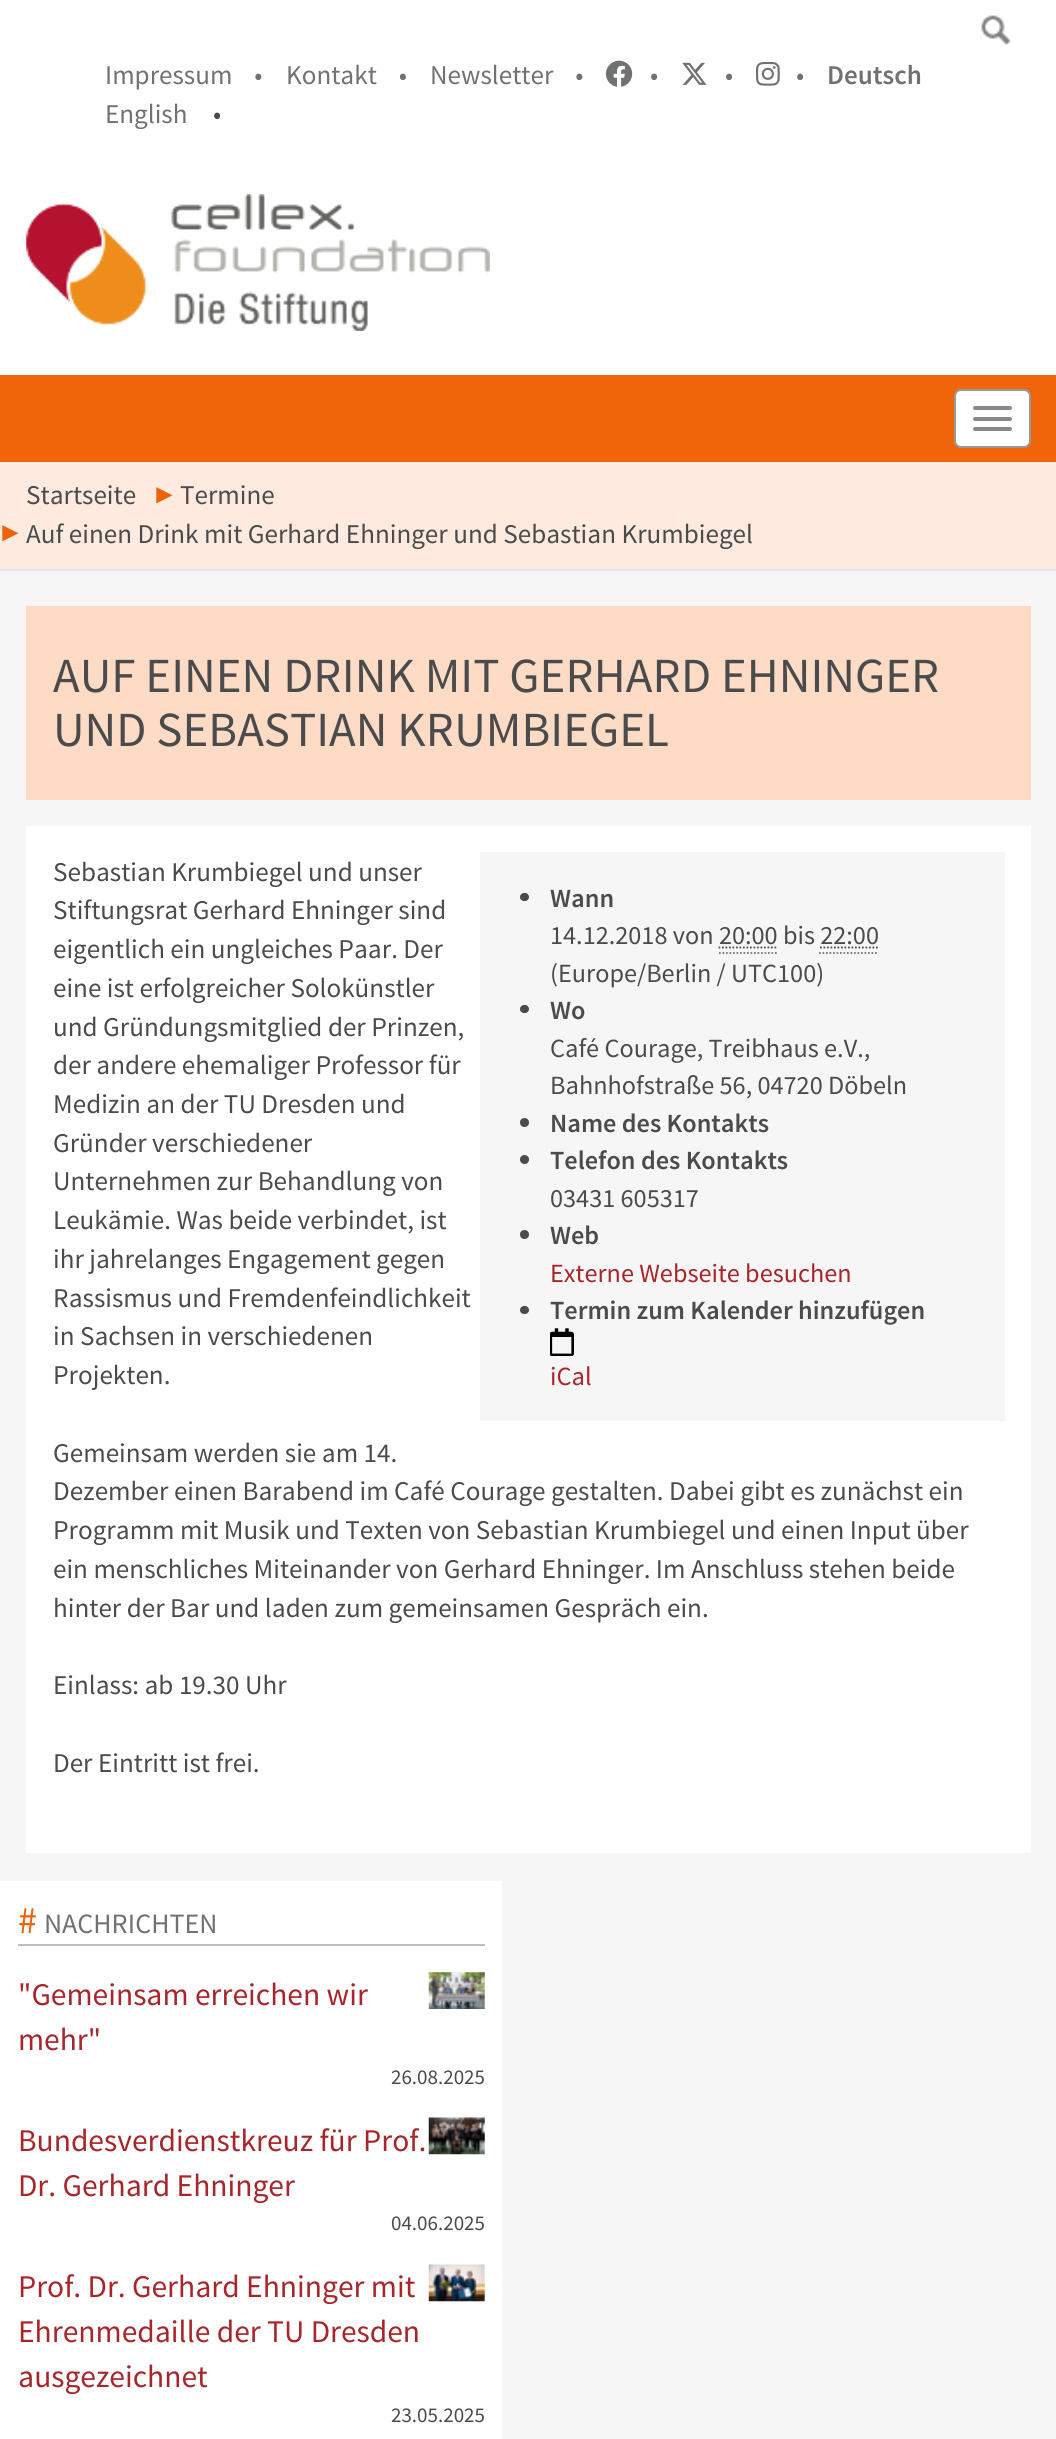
#include <cairo/cairo.h>
#include <math.h>
#include <stddef.h>

typedef struct { double x, y; const char *s; } line_t;
typedef struct { double x, y, w, h; unsigned color; } box_t;
static cairo_t *cr;

static void rgb(unsigned color)
{
	cairo_set_source_rgb(cr, (color >> 16) / 255.0, (color >> 8 & 255) / 255.0, (color & 255) / 255.0);
}

static void rrect(double x, double y, double w, double h, double r)
{
	cairo_new_sub_path(cr);
	cairo_arc(cr, x + w - r, y + h - r, r, 0, M_PI / 2);
	cairo_arc(cr, x + r, y + h - r, r, M_PI / 2, M_PI);
	cairo_arc(cr, x + r, y + r, r, M_PI, 1.5 * M_PI);
	cairo_arc(cr, x + w - r, y + r, r, 1.5 * M_PI, 2 * M_PI);
	cairo_close_path(cr);
}

static void image(const char *path, double x, double y, double w, double h)
{
	cairo_surface_t *image = cairo_image_surface_create_from_png(path);
	cairo_save(cr);
	cairo_set_source_surface(cr, image, x, y);
	cairo_rectangle(cr, x, y, w, h);
	cairo_fill(cr);
	cairo_restore(cr);
	cairo_surface_destroy(image);
}

int main(void) {
	cairo_surface_t *surface = cairo_image_surface_create(CAIRO_FORMAT_RGB24, 1056, 2439);
	cr = cairo_create(surface);
	cairo_font_options_t *options = cairo_font_options_create();
	cairo_font_options_set_hint_metrics(options, CAIRO_HINT_METRICS_OFF);
	cairo_font_options_set_hint_style(options, CAIRO_HINT_STYLE_NONE);
	cairo_set_font_options(cr, options);
	cairo_set_miter_limit(cr, 4);
	rgb(0xf6f6f6);
	cairo_paint(cr);
	rgb(0xffffff);
	cairo_rectangle(cr, 0, 0, 1056, 375);
	cairo_fill(cr);
	image("img/1.png", 981, 15, 30, 30);
	image("img/2.png", 605, 60, 28, 27);
	image("img/3.png", 682, 62, 25, 23);
	image("img/4.png", 756, 61, 24, 25);
	image("img/5.png", 26, 194, 464, 137);
	rgb(0xf1650a);
	cairo_rectangle(cr, 0, 375, 1056, 87);
	cairo_fill(cr);
	rgb(0xffffff);
	rrect(955, 390, 75, 57, 6);
	cairo_fill_preserve(cr);
	rgb(0x999999);
	cairo_stroke(cr);
	rgb(0x888888);
	rrect(973, 406, 39, 4, 2);
	cairo_fill(cr);
	rrect(973, 417, 39, 4, 2);
	cairo_fill(cr);
	rrect(973, 427, 39, 4, 2);
	cairo_fill(cr);
	{
		static const box_t items[] = {
			{0, 462, 1056, 107, 0xfeeade},
			{0, 569, 1056, 2, 0xe6e7e7},
			{26, 606, 1005, 194, 0xfddbc5},
			{26, 826, 1005, 1027, 0xffffff},
			{480, 852, 525, 569, 0xf6f6f6},
		};
		for (size_t i = 0; i < sizeof items / sizeof *items; i++) {
			rgb(items[i].color);
			cairo_rectangle(cr, items[i].x, items[i].y, items[i].w, items[i].h);
			cairo_fill(cr);
		}
	}
	rgb(0x4a4b4c);
	rrect(520, 893, 9, 8, 4);
	cairo_fill(cr);
	cairo_new_path(cr);
	cairo_move_to(cr, 718.5, 947.5);
	cairo_line_to(cr, 777, 947.5);
	cairo_set_line_width(cr, 1.8);
	cairo_set_dash(cr, (double[]){1.75, 1.75}, 2, 0);
	cairo_stroke(cr);
	cairo_new_path(cr);
	cairo_move_to(cr, 820, 947.5);
	cairo_line_to(cr, 878.5, 947.5);
	cairo_stroke(cr);
	cairo_new_path(cr);
	cairo_move_to(cr, 719, 953);
	cairo_line_to(cr, 777, 953);
	rgb(0x777777);
	cairo_stroke(cr);
	cairo_new_path(cr);
	cairo_move_to(cr, 819, 953);
	cairo_line_to(cr, 878.5, 953);
	cairo_stroke(cr);
	rgb(0x4a4b4c);
	rrect(520, 1005, 9, 8, 4);
	cairo_fill(cr);
	cairo_arc(cr, 524.5, 1122.5, 4.5, 0, 2 * M_PI);
	cairo_fill(cr);
	cairo_arc(cr, 524.5, 1159.5, 4.5, 0, 2 * M_PI);
	cairo_fill(cr);
	cairo_arc(cr, 524.5, 1234.5, 4.5, 0, 2 * M_PI);
	cairo_fill(cr);
	rrect(520, 1306, 9, 8, 4);
	cairo_fill(cr);
	image("img/6.png", 550, 1328, 24, 28);
	rgb(0xffffff);
	cairo_rectangle(cr, 0, 1881, 502, 558);
	cairo_fill(cr);
	rgb(0xbdbebf);
	cairo_rectangle(cr, 18, 1944, 467, 2);
	cairo_fill(cr);
	image("img/7.png", 428, 1972, 57, 37);
	image("img/8.png", 428, 2117, 57, 38);
	image("img/9.png", 428, 2264, 57, 38);
	cairo_select_font_face(cr, "Source Sans Pro", CAIRO_FONT_SLANT_NORMAL, CAIRO_FONT_WEIGHT_NORMAL);
	cairo_set_font_size(cr, 27.1);
	rgb(0x707173);
	{
		static const line_t items[] = {
			{105, 84, "Impressum    •"},
			{286, 84, "Kontakt    •"},
			{430, 84, "Newsletter    •"},
			{650, 84, "•"},
			{725, 84, "•"},
			{796, 84, "•"},
		};
		for (size_t i = 0; i < sizeof items / sizeof *items; i++) {
			cairo_move_to(cr, items[i].x, items[i].y);
			cairo_show_text(cr, items[i].s);
		}
	}
	cairo_select_font_face(cr, "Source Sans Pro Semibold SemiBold", CAIRO_FONT_SLANT_NORMAL, CAIRO_FONT_WEIGHT_NORMAL);
	cairo_move_to(cr, 827, 84);
	cairo_show_text(cr, "Deutsch");
	cairo_select_font_face(cr, "Source Sans Pro", CAIRO_FONT_SLANT_NORMAL, CAIRO_FONT_WEIGHT_NORMAL);
	cairo_move_to(cr, 105, 123);
	cairo_show_text(cr, "English");
	rgb(0x4a4b4c);
	cairo_move_to(cr, 213, 123);
	cairo_show_text(cr, "•");
	cairo_move_to(cr, 26, 504);
	cairo_show_text(cr, "Startseite");
	cairo_select_font_face(cr, "Liberation Serif", CAIRO_FONT_SLANT_NORMAL, CAIRO_FONT_WEIGHT_NORMAL);
	rgb(0xec630a);
	cairo_move_to(cr, 151, 503);
	cairo_show_text(cr, "►");
	cairo_select_font_face(cr, "Source Sans Pro", CAIRO_FONT_SLANT_NORMAL, CAIRO_FONT_WEIGHT_NORMAL);
	rgb(0x4a4b4c);
	cairo_move_to(cr, 180, 504);
	cairo_show_text(cr, "Termine");
	cairo_select_font_face(cr, "Liberation Serif", CAIRO_FONT_SLANT_NORMAL, CAIRO_FONT_WEIGHT_NORMAL);
	rgb(0xec630a);
	cairo_move_to(cr, -3, 541);
	cairo_show_text(cr, "►");
	cairo_select_font_face(cr, "Source Sans Pro", CAIRO_FONT_SLANT_NORMAL, CAIRO_FONT_WEIGHT_NORMAL);
	rgb(0x4a4b4c);
	cairo_move_to(cr, 26, 543);
	cairo_show_text(cr, "Auf einen Drink mit Gerhard Ehninger und Sebastian Krumbiegel");
	cairo_set_font_size(cr, 49);
	cairo_move_to(cr, 53, 692);
	cairo_show_text(cr, "AUF EINEN DRINK MIT GERHARD EHNINGER");
	cairo_move_to(cr, 53, 746);
	cairo_show_text(cr, "UND SEBASTIAN KRUMBIEGEL");
	cairo_set_font_size(cr, 27.1);
	{
		static const line_t items[] = {
			{53, 881, "Sebastian Krumbiegel und unser"},
			{53, 919, "Stiftungsrat Gerhard Ehninger sind"},
			{53, 958, "eigentlich ein ungleiches Paar. Der"},
			{53, 997, "eine ist erfolgreicher Solokünstler"},
			{53, 1036, "und Gründungsmitglied der Prinzen,"},
			{53, 1074, "der andere ehemaliger Professor für"},
			{53, 1113, "Medizin an der TU Dresden und"},
			{53, 1152, "Gründer verschiedener"},
			{53, 1190, "Unternehmen zur Behandlung von"},
			{53, 1229, "Leukämie. Was beide verbindet, ist"},
			{53, 1268, "ihr jahrelanges Engagement gegen"},
			{53, 1307, "Rassismus und Fremdenfeindlichkeit"},
			{53, 1345, "in Sachsen in verschiedenen"},
			{53, 1384, "Projekten."},
			{53, 1462, "Gemeinsam werden sie am 14."},
			{53, 1500, "Dezember einen Barabend im Café Courage gestalten. Dabei gibt es zunächst ein"},
			{53, 1539, "Programm mit Musik und Texten von Sebastian Krumbiegel und einen Input über"},
			{53, 1578, "ein menschliches Miteinander von Gerhard Ehninger. Im Anschluss stehen beide"},
			{53, 1617, "hinter der Bar und laden zum gemeinsamen Gespräch ein."},
			{53, 1694, "Einlass: ab 19.30 Uhr"},
			{53, 1772, "Der Eintritt ist frei."},
		};
		for (size_t i = 0; i < sizeof items / sizeof *items; i++) {
			cairo_move_to(cr, items[i].x, items[i].y);
			cairo_show_text(cr, items[i].s);
		}
	}
	cairo_select_font_face(cr, "Source Sans Pro Semibold SemiBold", CAIRO_FONT_SLANT_NORMAL, CAIRO_FONT_WEIGHT_NORMAL);
	cairo_set_font_size(cr, 26.25);
	cairo_move_to(cr, 550, 907);
	cairo_show_text(cr, "Wann");
	cairo_select_font_face(cr, "Source Sans Pro", CAIRO_FONT_SLANT_NORMAL, CAIRO_FONT_WEIGHT_NORMAL);
	cairo_move_to(cr, 550, 944);
	cairo_show_text(cr, "14.12.2018 von 20:00 bis 22:00");
	cairo_move_to(cr, 550, 982);
	cairo_show_text(cr, "(Europe/Berlin / UTC100)");
	cairo_select_font_face(cr, "Source Sans Pro Semibold SemiBold", CAIRO_FONT_SLANT_NORMAL, CAIRO_FONT_WEIGHT_NORMAL);
	cairo_move_to(cr, 550, 1019);
	cairo_show_text(cr, "Wo");
	cairo_select_font_face(cr, "Source Sans Pro", CAIRO_FONT_SLANT_NORMAL, CAIRO_FONT_WEIGHT_NORMAL);
	cairo_move_to(cr, 550, 1057);
	cairo_show_text(cr, "Café Courage, Treibhaus e.V.,");
	cairo_move_to(cr, 550, 1094);
	cairo_show_text(cr, "Bahnhofstraße 56, 04720 Döbeln");
	cairo_select_font_face(cr, "Source Sans Pro Semibold SemiBold", CAIRO_FONT_SLANT_NORMAL, CAIRO_FONT_WEIGHT_NORMAL);
	cairo_move_to(cr, 550, 1132);
	cairo_show_text(cr, "Name des Kontakts");
	cairo_move_to(cr, 550, 1169);
	cairo_show_text(cr, "Telefon des Kontakts");
	cairo_select_font_face(cr, "Source Sans Pro", CAIRO_FONT_SLANT_NORMAL, CAIRO_FONT_WEIGHT_NORMAL);
	cairo_move_to(cr, 550, 1207);
	cairo_show_text(cr, "03431 605317");
	cairo_select_font_face(cr, "Source Sans Pro Semibold SemiBold", CAIRO_FONT_SLANT_NORMAL, CAIRO_FONT_WEIGHT_NORMAL);
	cairo_move_to(cr, 550, 1244);
	cairo_show_text(cr, "Web");
	cairo_select_font_face(cr, "Source Sans Pro", CAIRO_FONT_SLANT_NORMAL, CAIRO_FONT_WEIGHT_NORMAL);
	rgb(0xa9252a);
	cairo_move_to(cr, 550, 1282);
	cairo_show_text(cr, "Externe Webseite besuchen");
	cairo_select_font_face(cr, "Source Sans Pro Semibold SemiBold", CAIRO_FONT_SLANT_NORMAL, CAIRO_FONT_WEIGHT_NORMAL);
	rgb(0x4a4b4c);
	cairo_move_to(cr, 550, 1319);
	cairo_show_text(cr, "Termin zum Kalender hinzufügen");
	cairo_select_font_face(cr, "Source Sans Pro", CAIRO_FONT_SLANT_NORMAL, CAIRO_FONT_WEIGHT_NORMAL);
	rgb(0xa9252a);
	cairo_move_to(cr, 550, 1385);
	cairo_show_text(cr, "iCal");
	cairo_set_font_size(cr, 38);
	rgb(0xec630a);
	cairo_move_to(cr, 18, 1933);
	cairo_show_text(cr, "#");
	cairo_set_font_size(cr, 28);
	rgb(0x707173);
	cairo_move_to(cr, 44, 1933);
	cairo_show_text(cr, "NACHRICHTEN");
	cairo_set_font_size(cr, 31.5);
	rgb(0xa9252a);
	cairo_move_to(cr, 18, 2005);
	cairo_show_text(cr, "\"Gemeinsam erreichen wir");
	cairo_move_to(cr, 18, 2050);
	cairo_show_text(cr, "mehr\"");
	cairo_set_font_size(cr, 21);
	rgb(0x4a4b4c);
	cairo_move_to(cr, 391, 2084);
	cairo_show_text(cr, "26.08.2025");
	cairo_set_font_size(cr, 31.5);
	rgb(0xa9252a);
	cairo_move_to(cr, 18, 2151);
	cairo_show_text(cr, "Bundesverdienstkreuz für Prof.");
	cairo_move_to(cr, 18, 2196);
	cairo_show_text(cr, "Dr. Gerhard Ehninger");
	cairo_set_font_size(cr, 21);
	rgb(0x4a4b4c);
	cairo_move_to(cr, 391, 2230);
	cairo_show_text(cr, "04.06.2025");
	cairo_set_font_size(cr, 31.5);
	rgb(0xa9252a);
	{
		static const line_t items[] = {
			{18, 2297, "Prof. Dr. Gerhard Ehninger mit"},
			{18, 2342, "Ehrenmedaille der TU Dresden"},
			{18, 2387, "ausgezeichnet"},
		};
		for (size_t i = 0; i < sizeof items / sizeof *items; i++) {
			cairo_move_to(cr, items[i].x, items[i].y);
			cairo_show_text(cr, items[i].s);
		}
	}
	cairo_set_font_size(cr, 21);
	rgb(0x4a4b4c);
	cairo_move_to(cr, 391, 2422);
	cairo_show_text(cr, "23.05.2025");
	cairo_surface_write_to_png(surface, "page.png");
	cairo_font_options_destroy(options);
	cairo_destroy(cr);
	cairo_surface_destroy(surface);
	return 0;
}
